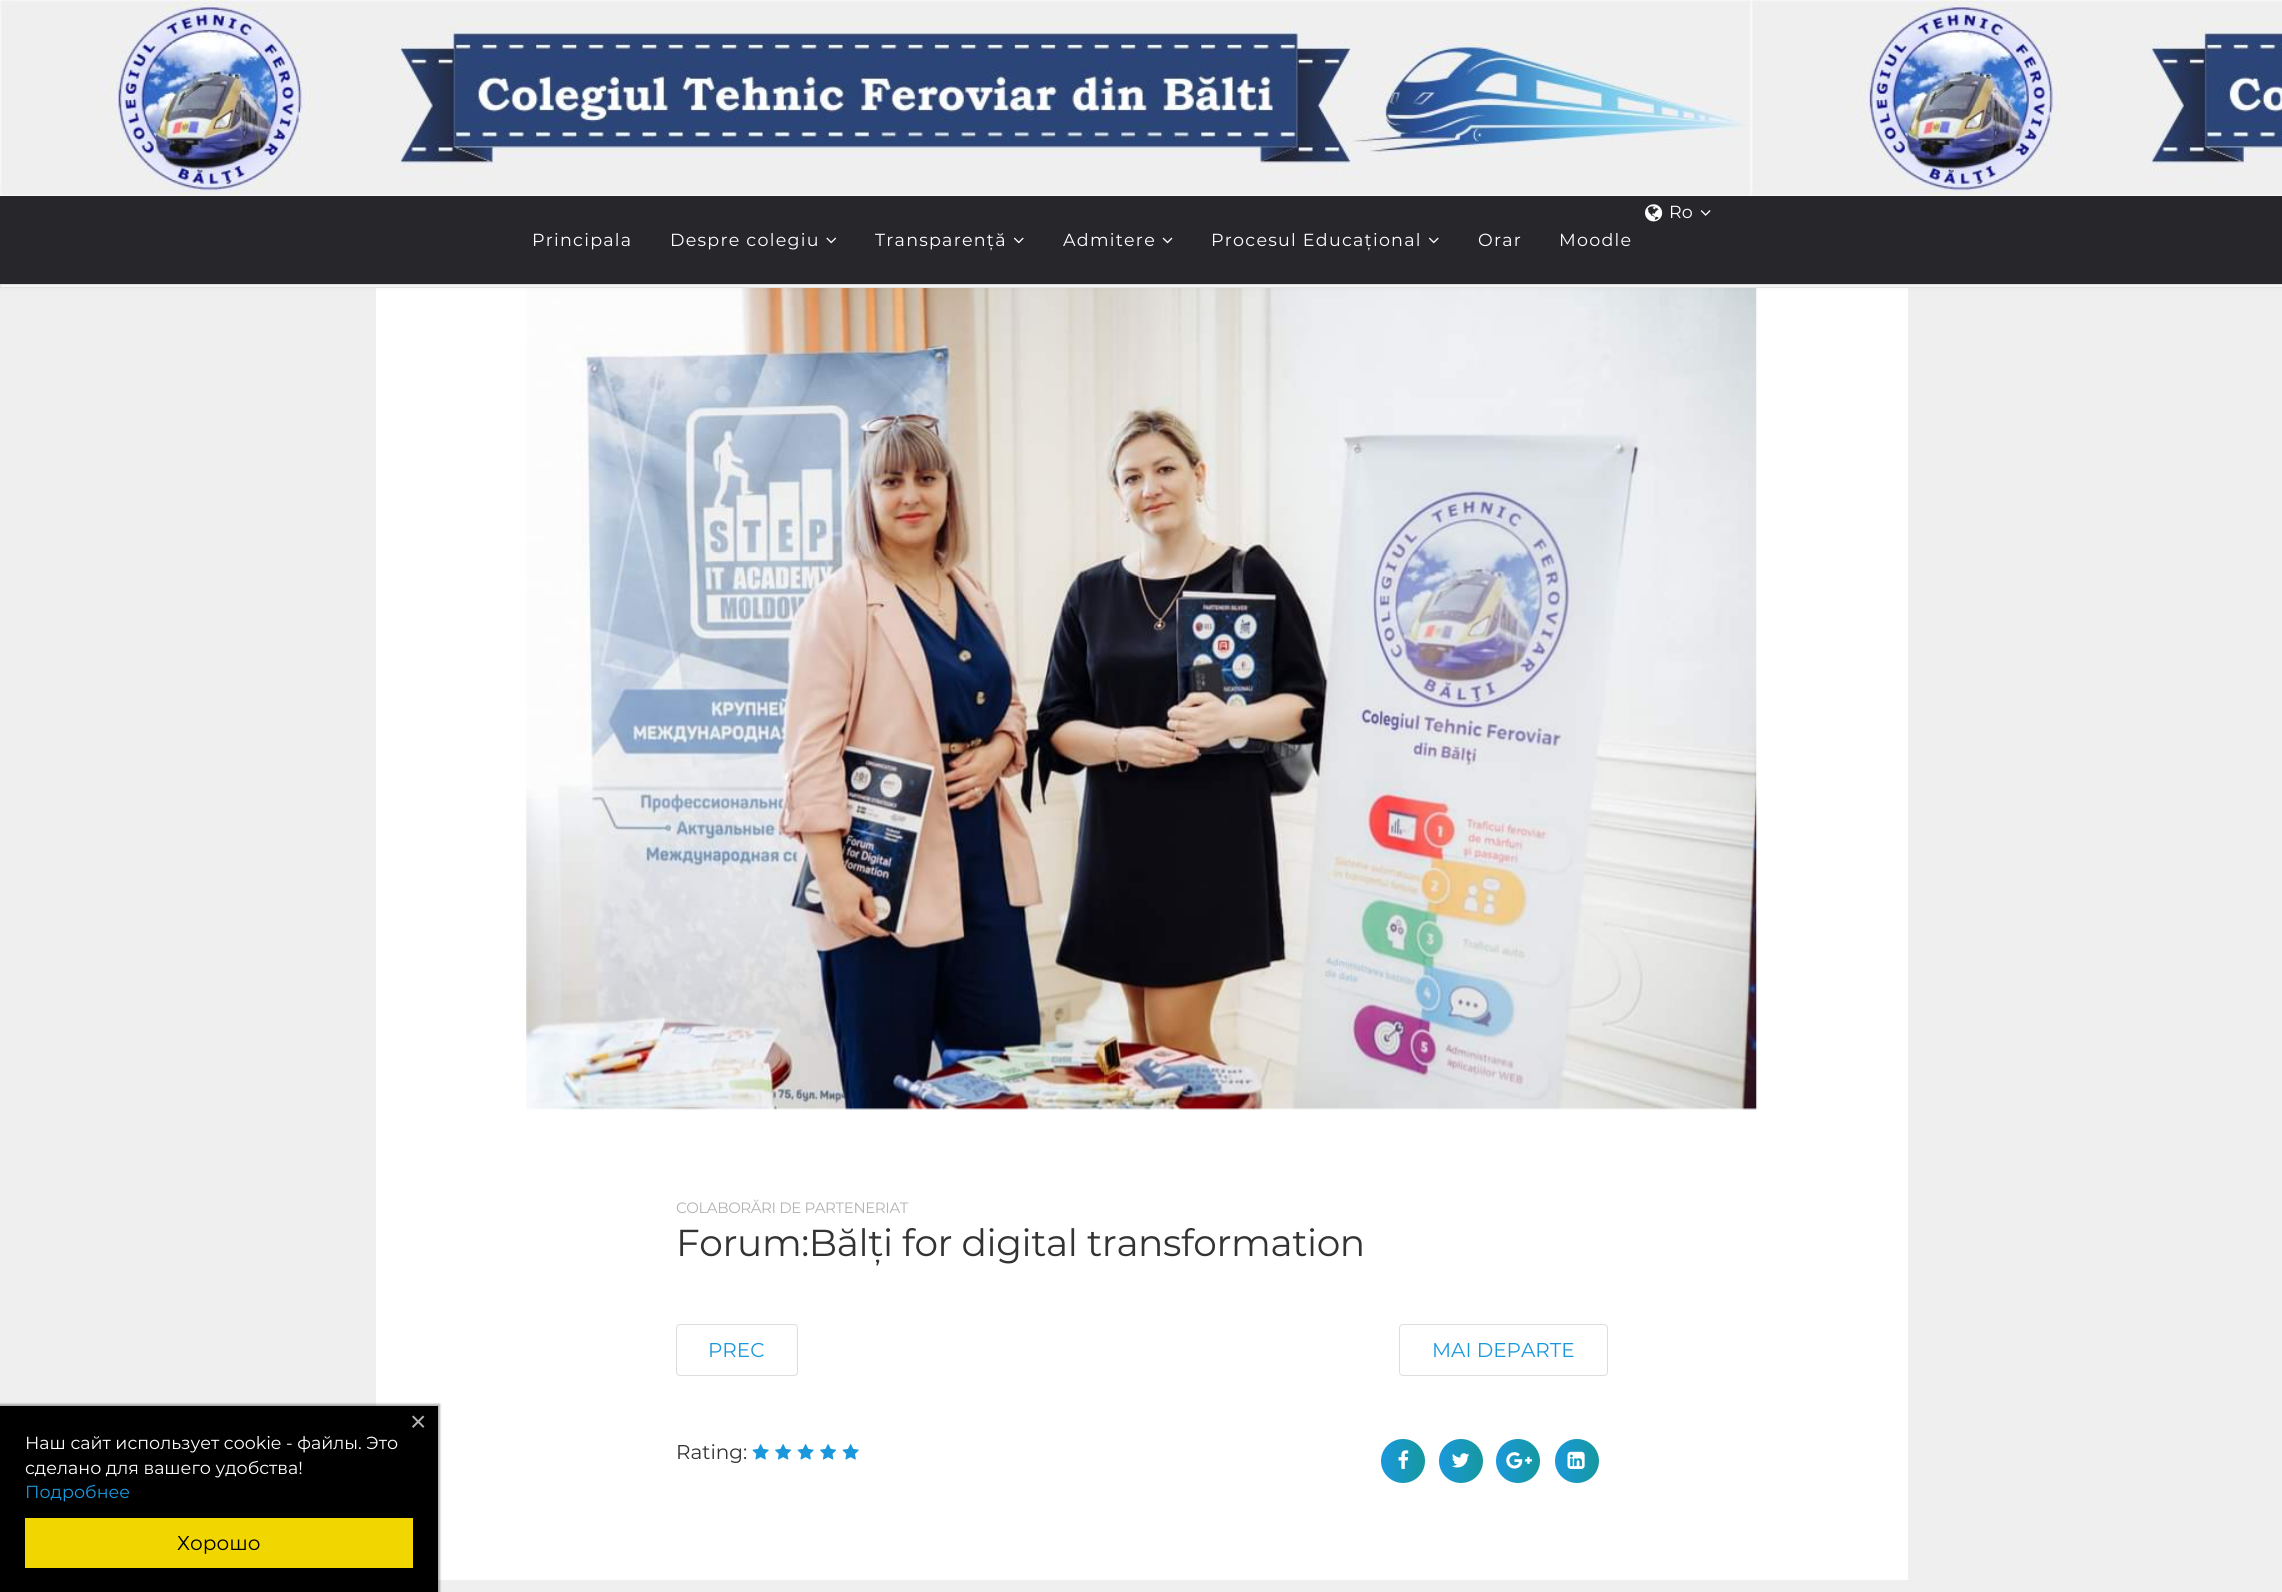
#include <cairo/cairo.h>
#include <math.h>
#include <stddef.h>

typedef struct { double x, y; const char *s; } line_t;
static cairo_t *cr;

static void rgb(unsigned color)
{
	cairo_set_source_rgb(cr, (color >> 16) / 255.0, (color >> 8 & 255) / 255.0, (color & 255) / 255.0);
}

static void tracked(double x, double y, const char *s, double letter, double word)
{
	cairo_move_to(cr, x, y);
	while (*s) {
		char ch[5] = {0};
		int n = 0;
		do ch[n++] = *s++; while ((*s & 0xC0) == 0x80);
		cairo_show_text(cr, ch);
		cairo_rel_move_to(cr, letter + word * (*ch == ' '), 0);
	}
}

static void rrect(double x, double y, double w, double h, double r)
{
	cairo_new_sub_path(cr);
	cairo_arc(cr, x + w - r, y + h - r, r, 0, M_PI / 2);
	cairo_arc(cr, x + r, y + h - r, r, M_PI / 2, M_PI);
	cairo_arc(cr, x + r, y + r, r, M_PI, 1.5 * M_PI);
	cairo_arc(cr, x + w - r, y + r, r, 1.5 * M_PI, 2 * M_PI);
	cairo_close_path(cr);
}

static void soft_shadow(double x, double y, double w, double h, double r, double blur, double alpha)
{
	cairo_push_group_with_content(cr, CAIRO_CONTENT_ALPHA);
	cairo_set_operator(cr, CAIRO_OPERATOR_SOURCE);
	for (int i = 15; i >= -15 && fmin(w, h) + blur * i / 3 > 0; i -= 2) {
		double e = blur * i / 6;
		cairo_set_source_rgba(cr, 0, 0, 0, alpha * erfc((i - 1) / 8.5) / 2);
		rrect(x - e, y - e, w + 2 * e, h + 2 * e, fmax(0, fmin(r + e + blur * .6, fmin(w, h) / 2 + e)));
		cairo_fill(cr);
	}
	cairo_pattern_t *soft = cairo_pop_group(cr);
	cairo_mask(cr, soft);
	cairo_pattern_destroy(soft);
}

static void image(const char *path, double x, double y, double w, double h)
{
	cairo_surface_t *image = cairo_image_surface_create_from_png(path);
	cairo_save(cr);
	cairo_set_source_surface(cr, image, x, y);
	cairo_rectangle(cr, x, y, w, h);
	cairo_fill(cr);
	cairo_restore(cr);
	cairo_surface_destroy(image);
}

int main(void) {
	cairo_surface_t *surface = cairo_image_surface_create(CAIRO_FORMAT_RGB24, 2282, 1592);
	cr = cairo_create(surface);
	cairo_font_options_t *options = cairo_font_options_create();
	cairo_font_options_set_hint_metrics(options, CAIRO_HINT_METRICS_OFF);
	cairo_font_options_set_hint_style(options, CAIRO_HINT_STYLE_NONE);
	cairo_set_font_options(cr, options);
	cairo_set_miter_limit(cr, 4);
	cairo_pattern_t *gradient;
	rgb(0xefefef);
	cairo_paint(cr);
	image("img/1.png", 0, 0, 2282, 196);
	rgb(0xffffff);
	cairo_rectangle(cr, 0.5, 284.5, 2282, 3);
	cairo_fill_preserve(cr);
	rgb(0xe6e6e6);
	cairo_set_line_width(cr, 1);
	cairo_stroke(cr);
	rgb(0xffffff);
	cairo_rectangle(cr, 376, 288, 1532, 1292);
	cairo_fill(cr);
	image("img/7.png", 526, 288, 1232, 822);
	rgb(0x000000);
	soft_shadow(0, 200, 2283, 88, 0, 2, 0.05);
	rgb(0x26262b);
	cairo_rectangle(cr, 0, 196, 2282, 88);
	cairo_fill(cr);
	image("img/2.png", 1645, 204, 18, 18);
	image("img/3.png", 1700, 210, 11, 6);
	image("img/4.png", 826, 237, 11, 7);
	image("img/5.png", 1013, 237, 11, 7);
	image("img/6.png", 1162, 237, 11, 7);
	image("img/5.png", 1428, 237, 11, 7);
	rrect(676.5, 1324.5, 121, 51, 3.5);
	rgb(0xdddddd);
	cairo_stroke(cr);
	rrect(1399.5, 1324.5, 208, 51, 3.5);
	cairo_stroke(cr);
	image("img/8.png", 752, 1444, 17, 16);
	image("img/9.png", 775, 1444, 17, 16);
	image("img/8.png", 797, 1444, 17, 16);
	image("img/9.png", 820, 1444, 17, 16);
	image("img/8.png", 842, 1444, 17, 16);
	gradient = cairo_pattern_create_linear(1381, 1461, 1425, 1461);
	cairo_pattern_add_color_stop_rgba(gradient, 0, 0.106, 0.596, 0.863, 1);
	cairo_pattern_add_color_stop_rgba(gradient, 1, 0.082, 0.596, 0.62, 1);
	cairo_set_source(cr, gradient);
	cairo_pattern_destroy(gradient);
	cairo_arc(cr, 1403, 1461, 22, 0, 2 * M_PI);
	cairo_fill(cr);
	image("img/10.png", 1398, 1450, 11, 19);
	gradient = cairo_pattern_create_linear(1439, 1461, 1483, 1461);
	cairo_pattern_add_color_stop_rgba(gradient, 0, 0.106, 0.596, 0.863, 1);
	cairo_pattern_add_color_stop_rgba(gradient, 1, 0.082, 0.596, 0.62, 1);
	cairo_set_source(cr, gradient);
	cairo_pattern_destroy(gradient);
	cairo_arc(cr, 1461, 1461, 22, 0, 2 * M_PI);
	cairo_fill(cr);
	image("img/11.png", 1451, 1453, 19, 15);
	gradient = cairo_pattern_create_linear(1496, 1461, 1540, 1461);
	cairo_pattern_add_color_stop_rgba(gradient, 0, 0.106, 0.596, 0.863, 1);
	cairo_pattern_add_color_stop_rgba(gradient, 1, 0.082, 0.596, 0.62, 1);
	cairo_set_source(cr, gradient);
	cairo_pattern_destroy(gradient);
	cairo_arc(cr, 1518, 1461, 22, 0, 2 * M_PI);
	cairo_fill(cr);
	image("img/12.png", 1506, 1452, 26, 17);
	gradient = cairo_pattern_create_linear(1555, 1461, 1599, 1461);
	cairo_pattern_add_color_stop_rgba(gradient, 0, 0.106, 0.596, 0.863, 1);
	cairo_pattern_add_color_stop_rgba(gradient, 1, 0.082, 0.596, 0.62, 1);
	cairo_set_source(cr, gradient);
	cairo_pattern_destroy(gradient);
	cairo_arc(cr, 1577, 1461, 22, 0, 2 * M_PI);
	cairo_fill(cr);
	image("img/13.png", 1567, 1451, 18, 18);
	rgb(0x000001);
	soft_shadow(-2, 1404, 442, 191, 0, 1, 0.3);
	rgb(0x000000);
	cairo_rectangle(cr, 0, 1406, 438, 186);
	cairo_fill(cr);
	rgb(0xf1d600);
	cairo_rectangle(cr, 25, 1518, 388, 50);
	cairo_fill(cr);
	cairo_select_font_face(cr, "Montserrat", CAIRO_FONT_SLANT_NORMAL, CAIRO_FONT_WEIGHT_NORMAL);
	cairo_set_font_size(cr, 17.5);
	rgb(0xffffff);
	cairo_move_to(cr, 1669, 218);
	cairo_show_text(cr, "Ro");
	{
		static const line_t items[] = {
			{532, 246, "Principala"},
			{670, 246, "Despre colegiu"},
			{875, 246, "Transparență"},
			{1063, 246, "Admitere"},
			{1211, 246, "Procesul Educațional"},
			{1478, 246, "Orar"},
			{1559, 246, "Moodle"},
		};
		for (size_t i = 0; i < sizeof items / sizeof *items; i++) {
			tracked(items[i].x, items[i].y, items[i].s, 1.25, 0);
		}
	}
	cairo_set_font_size(cr, 15);
	rgb(0xb2b2b2);
	tracked(676, 1213, "COLABORĂRI DE PARTENERIAT", -0.4, 0);
	cairo_set_font_size(cr, 37.5);
	rgb(0x333333);
	tracked(676, 1256, "Forum:Bălți for digital transformation", -0.4, 0);
	cairo_set_font_size(cr, 20);
	rgb(0x1b98dc);
	cairo_move_to(cr, 708, 1357);
	cairo_show_text(cr, "PREC");
	cairo_move_to(cr, 1432, 1357);
	cairo_show_text(cr, "MAI DEPARTE");
	rgb(0x333333);
	cairo_move_to(cr, 676, 1459);
	cairo_show_text(cr, "Rating:");
	cairo_select_font_face(cr, "Liberation Sans", CAIRO_FONT_SLANT_NORMAL, CAIRO_FONT_WEIGHT_NORMAL);
	cairo_set_font_size(cr, 28);
	rgb(0xb2b2b2);
	cairo_move_to(cr, 410, 1431);
	cairo_show_text(cr, "×");
	cairo_select_font_face(cr, "Montserrat", CAIRO_FONT_SLANT_NORMAL, CAIRO_FONT_WEIGHT_NORMAL);
	cairo_set_font_size(cr, 17.5);
	rgb(0xffffff);
	cairo_move_to(cr, 25, 1449);
	cairo_show_text(cr, "Наш сайт использует cookie - файлы. Это");
	cairo_move_to(cr, 25, 1474);
	cairo_show_text(cr, "сделано для вашего удобства!");
	rgb(0x1b98dc);
	cairo_move_to(cr, 25, 1498);
	cairo_show_text(cr, "Подробнее");
	cairo_set_font_size(cr, 20);
	rgb(0x000000);
	cairo_move_to(cr, 177, 1550);
	cairo_show_text(cr, "Хорошо");
	cairo_surface_write_to_png(surface, "page.png");
	cairo_font_options_destroy(options);
	cairo_destroy(cr);
	cairo_surface_destroy(surface);
	return 0;
}
